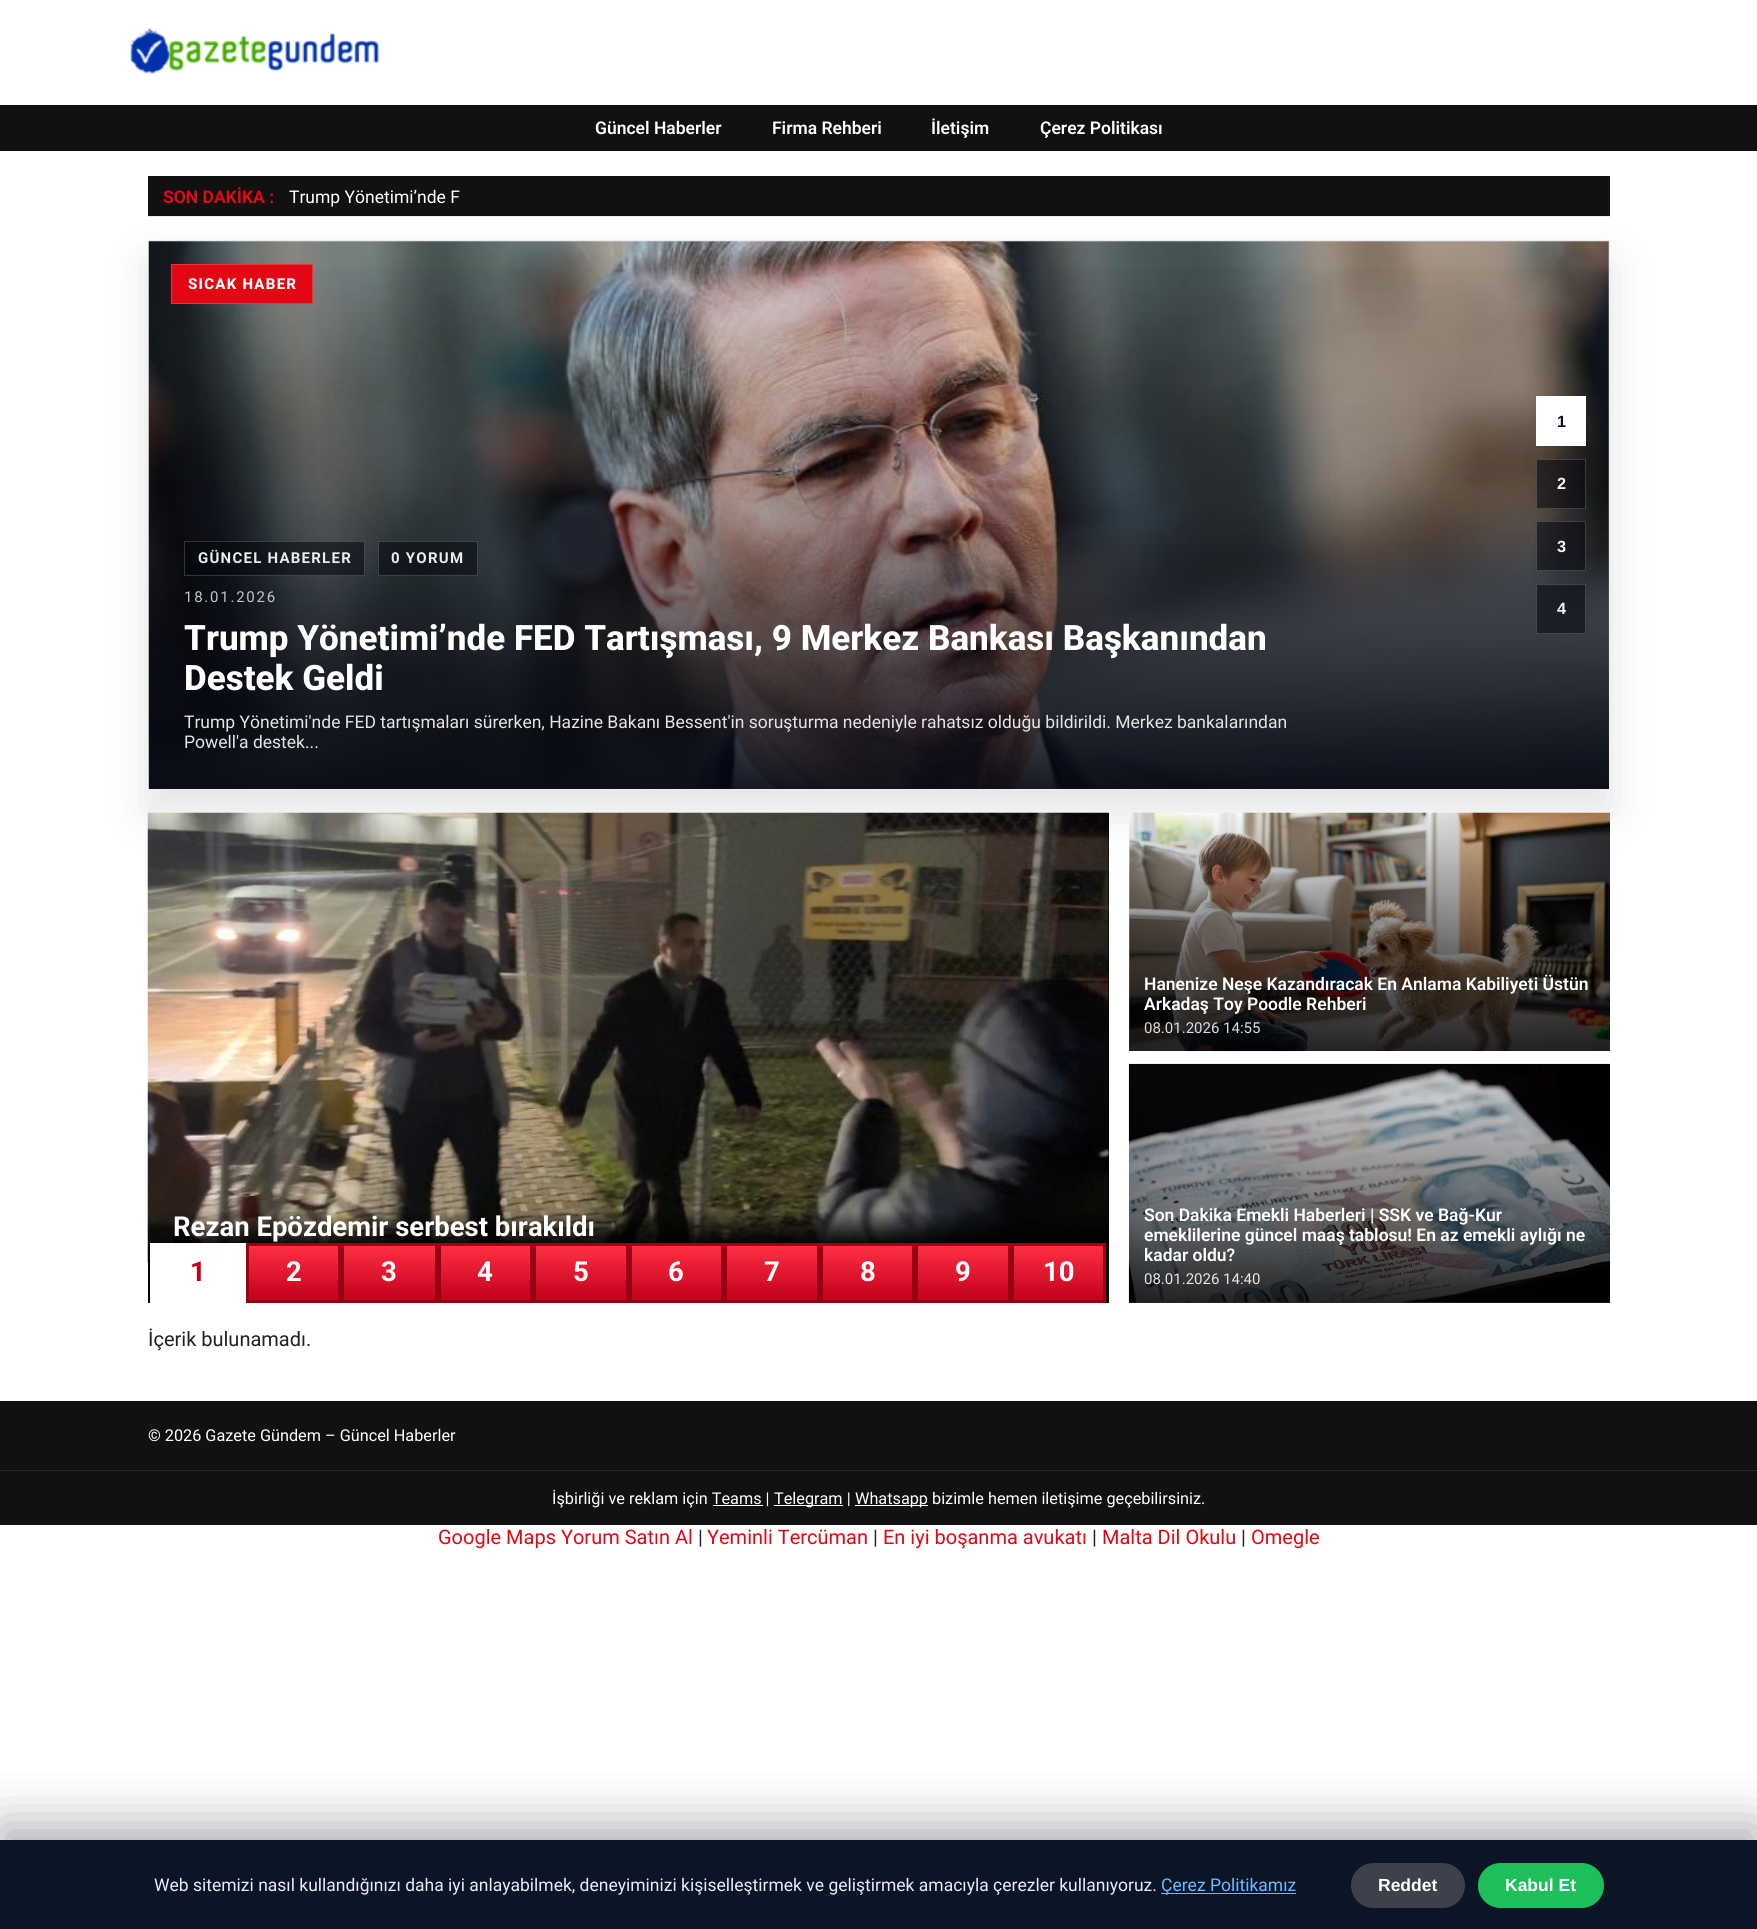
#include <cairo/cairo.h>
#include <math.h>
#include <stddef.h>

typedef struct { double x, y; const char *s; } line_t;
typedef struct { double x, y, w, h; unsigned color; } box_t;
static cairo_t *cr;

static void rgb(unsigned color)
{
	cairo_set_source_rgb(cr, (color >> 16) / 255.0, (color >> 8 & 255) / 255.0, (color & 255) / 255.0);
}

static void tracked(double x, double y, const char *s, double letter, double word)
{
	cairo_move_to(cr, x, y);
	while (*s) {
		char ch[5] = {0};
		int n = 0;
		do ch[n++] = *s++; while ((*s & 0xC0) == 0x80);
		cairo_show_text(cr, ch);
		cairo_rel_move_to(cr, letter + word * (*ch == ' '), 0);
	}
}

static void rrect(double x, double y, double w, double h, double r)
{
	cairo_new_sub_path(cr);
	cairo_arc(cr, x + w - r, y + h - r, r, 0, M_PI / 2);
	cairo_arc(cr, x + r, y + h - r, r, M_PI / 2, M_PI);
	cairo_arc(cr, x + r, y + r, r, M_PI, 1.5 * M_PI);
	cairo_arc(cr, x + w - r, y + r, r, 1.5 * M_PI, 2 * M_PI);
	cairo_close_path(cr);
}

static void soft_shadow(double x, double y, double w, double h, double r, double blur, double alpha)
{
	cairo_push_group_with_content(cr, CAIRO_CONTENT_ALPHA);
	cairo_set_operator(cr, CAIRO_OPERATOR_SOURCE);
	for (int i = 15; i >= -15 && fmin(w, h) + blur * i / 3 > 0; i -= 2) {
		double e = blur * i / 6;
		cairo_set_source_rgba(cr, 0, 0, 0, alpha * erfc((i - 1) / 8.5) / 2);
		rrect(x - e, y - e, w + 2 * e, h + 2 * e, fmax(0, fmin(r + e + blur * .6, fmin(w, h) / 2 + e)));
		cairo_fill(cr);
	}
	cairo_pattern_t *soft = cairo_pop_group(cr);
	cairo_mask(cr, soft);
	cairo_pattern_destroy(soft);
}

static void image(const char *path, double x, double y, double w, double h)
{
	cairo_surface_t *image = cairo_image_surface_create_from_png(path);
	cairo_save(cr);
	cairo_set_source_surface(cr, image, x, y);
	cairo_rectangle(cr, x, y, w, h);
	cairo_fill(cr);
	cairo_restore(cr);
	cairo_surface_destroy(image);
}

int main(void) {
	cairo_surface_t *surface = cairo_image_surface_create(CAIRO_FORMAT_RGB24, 1757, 1929);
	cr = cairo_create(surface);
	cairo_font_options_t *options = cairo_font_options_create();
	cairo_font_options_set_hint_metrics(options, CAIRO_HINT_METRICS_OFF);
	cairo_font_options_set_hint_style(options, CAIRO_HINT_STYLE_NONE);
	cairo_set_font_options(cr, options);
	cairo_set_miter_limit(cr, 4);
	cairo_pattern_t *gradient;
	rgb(0xffffff);
	cairo_paint(cr);
	image("img/1.png", 130, 27, 249, 47);
	{
		static const box_t items[] = {
			{0, 105, 1757, 46, 0x111111},
			{148, 216, 1462, 1, 0xededed},
			{148, 176, 1462, 40, 0x111111},
		};
		for (size_t i = 0; i < sizeof items / sizeof *items; i++) {
			rgb(items[i].color);
			cairo_rectangle(cr, items[i].x, items[i].y, items[i].w, items[i].h);
			cairo_fill(cr);
		}
	}
	rgb(0x101828);
	soft_shadow(148, 263, 1462, 550, 0, 22, 0.12);
	cairo_rectangle(cr, 148.5, 240.5, 1461, 549);
	rgb(0xececee);
	cairo_set_line_width(cr, 1);
	cairo_stroke(cr);
	image("img/2.png", 148, 241, 1461, 548);
	gradient = cairo_pattern_create_linear(879, 789, 879, 241);
	cairo_pattern_add_color_stop_rgba(gradient, 0, 0.02, 0.027, 0.063, 0.92);
	cairo_pattern_add_color_stop_rgba(gradient, 0.55, 0.02, 0.027, 0.063, 0.2);
	cairo_pattern_add_color_stop_rgba(gradient, 1, 0.02, 0.027, 0.063, 0);
	cairo_set_source(cr, gradient);
	cairo_pattern_destroy(gradient);
	cairo_rectangle(cr, 149, 268, 1460, 521);
	cairo_fill(cr);
	rgb(0xe30613);
	cairo_rectangle(cr, 171.5, 264.5, 141, 39);
	cairo_fill_preserve(cr);
	rgb(0xe8333d);
	cairo_stroke(cr);
	cairo_set_source_rgba(cr, 0.02, 0.027, 0.063, 0.55);
	cairo_rectangle(cr, 184, 541, 181, 35);
	cairo_fill(cr);
	cairo_rectangle(cr, 184.5, 541.5, 180, 34);
	cairo_set_source_rgba(cr, 1, 1, 1, 0.18);
	cairo_stroke(cr);
	cairo_set_source_rgba(cr, 0.02, 0.027, 0.063, 0.55);
	cairo_rectangle(cr, 378, 541, 100, 35);
	cairo_fill(cr);
	cairo_rectangle(cr, 378.5, 541.5, 99, 34);
	cairo_set_source_rgba(cr, 1, 1, 1, 0.18);
	cairo_stroke(cr);
	rgb(0xffffff);
	cairo_rectangle(cr, 1536, 396, 50, 50);
	cairo_fill(cr);
	cairo_set_source_rgba(cr, 0.02, 0.027, 0.063, 0.55);
	cairo_rectangle(cr, 1536, 459, 50, 50);
	cairo_fill(cr);
	cairo_rectangle(cr, 1536.5, 459.5, 49, 49);
	cairo_set_source_rgba(cr, 1, 1, 1, 0.18);
	cairo_stroke(cr);
	cairo_set_source_rgba(cr, 0.02, 0.027, 0.063, 0.55);
	cairo_rectangle(cr, 1536, 521, 50, 50);
	cairo_fill(cr);
	cairo_rectangle(cr, 1536.5, 521.5, 49, 49);
	cairo_set_source_rgba(cr, 1, 1, 1, 0.18);
	cairo_stroke(cr);
	cairo_set_source_rgba(cr, 0.02, 0.027, 0.063, 0.55);
	cairo_rectangle(cr, 1536, 584, 50, 50);
	cairo_fill(cr);
	cairo_rectangle(cr, 1536.5, 584.5, 49, 49);
	cairo_set_source_rgba(cr, 1, 1, 1, 0.18);
	cairo_stroke(cr);
	rgb(0x000000);
	cairo_rectangle(cr, 1108, 813, 1, 430);
	cairo_fill(cr);
	image("img/3.png", 147, 812, 962, 451);
	gradient = cairo_pattern_create_linear(641, 1243, 641, 1211);
	cairo_pattern_add_color_stop_rgba(gradient, 0, 0, 0, 0, 0.85);
	cairo_pattern_add_color_stop_rgba(gradient, 1, 0, 0, 0, 0);
	cairo_set_source(cr, gradient);
	cairo_pattern_destroy(gradient);
	cairo_rectangle(cr, 173, 1212, 935, 31);
	cairo_fill(cr);
	image("img/5.png", 1128, 1063, 482, 240);
	gradient = cairo_pattern_create_linear(1369, 1303, 1369, 1064);
	cairo_pattern_add_color_stop_rgba(gradient, 0, 0, 0, 0, 0.85);
	cairo_pattern_add_color_stop_rgba(gradient, 1, 0, 0, 0, 0);
	cairo_set_source(cr, gradient);
	cairo_pattern_destroy(gradient);
	cairo_rectangle(cr, 1129, 1071, 481, 232);
	cairo_fill(cr);
	cairo_save(cr);
	cairo_rectangle(cr, 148, 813, 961, 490);
	cairo_clip(cr);
	rgb(0x000000);
	soft_shadow(148, 1235, 961, 60, 0, 11, 0.35);
	cairo_restore(cr);
	rgb(0x050505);
	cairo_rectangle(cr, 148, 1243, 961, 60);
	cairo_fill(cr);
	rgb(0xffffff);
	cairo_rectangle(cr, 150, 1243, 96, 60);
	cairo_fill(cr);
	gradient = cairo_pattern_create_linear(294, 1245, 294, 1300);
	cairo_pattern_add_color_stop_rgba(gradient, 0, 1, 0.188, 0.263, 1);
	cairo_pattern_add_color_stop_rgba(gradient, 1, 0.769, 0, 0.114, 1);
	cairo_set_source(cr, gradient);
	cairo_pattern_destroy(gradient);
	cairo_rectangle(cr, 249, 1246, 89, 54);
	cairo_fill(cr);
	cairo_rectangle(cr, 247.5, 1244.5, 92, 57);
	rgb(0x950014);
	cairo_set_line_width(cr, 3);
	cairo_stroke(cr);
	gradient = cairo_pattern_create_linear(389, 1245, 389, 1300);
	cairo_pattern_add_color_stop_rgba(gradient, 0, 1, 0.188, 0.263, 1);
	cairo_pattern_add_color_stop_rgba(gradient, 1, 0.769, 0, 0.114, 1);
	cairo_set_source(cr, gradient);
	cairo_pattern_destroy(gradient);
	cairo_rectangle(cr, 344, 1246, 91, 54);
	cairo_fill(cr);
	cairo_rectangle(cr, 342.5, 1244.5, 94, 57);
	rgb(0x950014);
	cairo_stroke(cr);
	gradient = cairo_pattern_create_linear(485, 1245, 485, 1300);
	cairo_pattern_add_color_stop_rgba(gradient, 0, 1, 0.188, 0.263, 1);
	cairo_pattern_add_color_stop_rgba(gradient, 1, 0.769, 0, 0.114, 1);
	cairo_set_source(cr, gradient);
	cairo_pattern_destroy(gradient);
	cairo_rectangle(cr, 441, 1246, 89, 54);
	cairo_fill(cr);
	cairo_rectangle(cr, 439.5, 1244.5, 92, 57);
	rgb(0x950014);
	cairo_stroke(cr);
	gradient = cairo_pattern_create_linear(581, 1245, 581, 1300);
	cairo_pattern_add_color_stop_rgba(gradient, 0, 1, 0.188, 0.263, 1);
	cairo_pattern_add_color_stop_rgba(gradient, 1, 0.769, 0, 0.114, 1);
	cairo_set_source(cr, gradient);
	cairo_pattern_destroy(gradient);
	cairo_rectangle(cr, 536, 1246, 90, 54);
	cairo_fill(cr);
	cairo_rectangle(cr, 534.5, 1244.5, 93, 57);
	rgb(0x950014);
	cairo_stroke(cr);
	gradient = cairo_pattern_create_linear(676, 1245, 676, 1300);
	cairo_pattern_add_color_stop_rgba(gradient, 0, 1, 0.188, 0.263, 1);
	cairo_pattern_add_color_stop_rgba(gradient, 1, 0.769, 0, 0.114, 1);
	cairo_set_source(cr, gradient);
	cairo_pattern_destroy(gradient);
	cairo_rectangle(cr, 632, 1246, 89, 54);
	cairo_fill(cr);
	cairo_rectangle(cr, 630.5, 1244.5, 92, 57);
	rgb(0x950014);
	cairo_stroke(cr);
	gradient = cairo_pattern_create_linear(772, 1245, 772, 1300);
	cairo_pattern_add_color_stop_rgba(gradient, 0, 1, 0.188, 0.263, 1);
	cairo_pattern_add_color_stop_rgba(gradient, 1, 0.769, 0, 0.114, 1);
	cairo_set_source(cr, gradient);
	cairo_pattern_destroy(gradient);
	cairo_rectangle(cr, 727, 1246, 90, 54);
	cairo_fill(cr);
	cairo_rectangle(cr, 725.5, 1244.5, 93, 57);
	rgb(0x950014);
	cairo_stroke(cr);
	gradient = cairo_pattern_create_linear(868, 1245, 868, 1300);
	cairo_pattern_add_color_stop_rgba(gradient, 0, 1, 0.188, 0.263, 1);
	cairo_pattern_add_color_stop_rgba(gradient, 1, 0.769, 0, 0.114, 1);
	cairo_set_source(cr, gradient);
	cairo_pattern_destroy(gradient);
	cairo_rectangle(cr, 823, 1246, 89, 54);
	cairo_fill(cr);
	cairo_rectangle(cr, 821.5, 1244.5, 92, 57);
	rgb(0x950014);
	cairo_stroke(cr);
	gradient = cairo_pattern_create_linear(963, 1245, 963, 1300);
	cairo_pattern_add_color_stop_rgba(gradient, 0, 1, 0.188, 0.263, 1);
	cairo_pattern_add_color_stop_rgba(gradient, 1, 0.769, 0, 0.114, 1);
	cairo_set_source(cr, gradient);
	cairo_pattern_destroy(gradient);
	cairo_rectangle(cr, 918, 1246, 90, 54);
	cairo_fill(cr);
	cairo_rectangle(cr, 916.5, 1244.5, 93, 57);
	rgb(0x950014);
	cairo_stroke(cr);
	gradient = cairo_pattern_create_linear(1059, 1245, 1059, 1300);
	cairo_pattern_add_color_stop_rgba(gradient, 0, 1, 0.188, 0.263, 1);
	cairo_pattern_add_color_stop_rgba(gradient, 1, 0.769, 0, 0.114, 1);
	cairo_set_source(cr, gradient);
	cairo_pattern_destroy(gradient);
	cairo_rectangle(cr, 1014, 1246, 89, 54);
	cairo_fill(cr);
	cairo_rectangle(cr, 1012.5, 1244.5, 92, 57);
	rgb(0x950014);
	cairo_stroke(cr);
	image("img/4.png", 1129, 812, 481, 240);
	{
		static const box_t items[] = {
			{0, 1401, 1757, 69, 0x111111},
			{0, 1471, 1757, 54, 0x111111},
			{0, 1470, 1757, 1, 0x242424},
			{774, 1505, 69, 1, 0xffffff},
			{855, 1505, 73, 1, 0xffffff},
			{713, 1505, 50, 1, 0xffffff},
		};
		for (size_t i = 0; i < sizeof items / sizeof *items; i++) {
			rgb(items[i].color);
			cairo_rectangle(cr, items[i].x, items[i].y, items[i].w, items[i].h);
			cairo_fill(cr);
		}
	}
	rgb(0x0c1522);
	soft_shadow(0, 1825, 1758, 90, 0, 25, 0.35);
	rgb(0x0b1526);
	cairo_rectangle(cr, 0, 1840, 1757, 89);
	cairo_fill(cr);
	rgb(0x6fb9ff);
	cairo_rectangle(cr, 1161, 1893, 135, 1);
	cairo_fill(cr);
	rgb(0x3c414b);
	rrect(1351, 1863, 114, 45, 22.5);
	cairo_fill(cr);
	rgb(0x1dbf5b);
	rrect(1478, 1863, 126, 45, 22.5);
	cairo_fill(cr);
	cairo_select_font_face(cr, "Roboto SemiBold", CAIRO_FONT_SLANT_NORMAL, CAIRO_FONT_WEIGHT_NORMAL);
	cairo_set_font_size(cr, 17.5);
	rgb(0xffffff);
	{
		static const line_t items[] = {
			{595, 134, "Güncel Haberler"},
			{772, 134, "Firma Rehberi"},
			{931, 134, "İletişim"},
			{1040, 134, "Çerez Politikası"},
		};
		for (size_t i = 0; i < sizeof items / sizeof *items; i++) {
			cairo_move_to(cr, items[i].x, items[i].y);
			cairo_show_text(cr, items[i].s);
		}
	}
	cairo_select_font_face(cr, "Roboto", CAIRO_FONT_SLANT_NORMAL, CAIRO_FONT_WEIGHT_BOLD);
	rgb(0xe30613);
	cairo_move_to(cr, 163, 203);
	cairo_show_text(cr, "SON DAKİKA :");
	cairo_select_font_face(cr, "Roboto", CAIRO_FONT_SLANT_NORMAL, CAIRO_FONT_WEIGHT_NORMAL);
	rgb(0xffffff);
	cairo_move_to(cr, 289, 203);
	cairo_show_text(cr, "Trump Yönetimi’nde F");
	cairo_select_font_face(cr, "Roboto ExtraBold", CAIRO_FONT_SLANT_NORMAL, CAIRO_FONT_WEIGHT_NORMAL);
	cairo_set_font_size(cr, 15);
	tracked(188, 289, "SICAK HABER", 1.25, 0);
	cairo_select_font_face(cr, "Roboto", CAIRO_FONT_SLANT_NORMAL, CAIRO_FONT_WEIGHT_BOLD);
	rgb(0xeceded);
	tracked(198, 563, "GÜNCEL HABERLER", 1.25, 0);
	tracked(391, 563, "0 YORUM", 1.25, 0);
	cairo_select_font_face(cr, "Roboto", CAIRO_FONT_SLANT_NORMAL, CAIRO_FONT_WEIGHT_NORMAL);
	rgb(0xc3c4c6);
	tracked(184, 602, "18.01.2026", 1.75, 0);
	cairo_select_font_face(cr, "Roboto ExtraBold", CAIRO_FONT_SLANT_NORMAL, CAIRO_FONT_WEIGHT_NORMAL);
	cairo_set_font_size(cr, 35);
	rgb(0xffffff);
	cairo_move_to(cr, 184, 650);
	cairo_show_text(cr, "Trump Yönetimi’nde FED Tartışması, 9 Merkez Bankası Başkanından");
	cairo_move_to(cr, 184, 690);
	cairo_show_text(cr, "Destek Geldi");
	cairo_select_font_face(cr, "Roboto", CAIRO_FONT_SLANT_NORMAL, CAIRO_FONT_WEIGHT_NORMAL);
	cairo_set_font_size(cr, 17.5);
	rgb(0xe4e4e4);
	cairo_move_to(cr, 184, 728);
	cairo_show_text(cr, "Trump Yönetimi'nde FED tartışmaları sürerken, Hazine Bakanı Bessent'in soruşturma nedeniyle rahatsız olduğu bildirildi. Merkez bankalarından");
	cairo_move_to(cr, 184, 748);
	cairo_show_text(cr, "Powell'a destek...");
	cairo_select_font_face(cr, "Liberation Sans", CAIRO_FONT_SLANT_NORMAL, CAIRO_FONT_WEIGHT_BOLD);
	cairo_set_font_size(cr, 16.25);
	rgb(0x0b1120);
	cairo_move_to(cr, 1557, 427);
	cairo_show_text(cr, "1");
	rgb(0xf4f4f4);
	{
		static const line_t items[] = {
			{1557, 489, "2"},
			{1557, 552, "3"},
			{1557, 614, "4"},
		};
		for (size_t i = 0; i < sizeof items / sizeof *items; i++) {
			cairo_move_to(cr, items[i].x, items[i].y);
			cairo_show_text(cr, items[i].s);
		}
	}
	cairo_select_font_face(cr, "Roboto", CAIRO_FONT_SLANT_NORMAL, CAIRO_FONT_WEIGHT_BOLD);
	cairo_set_font_size(cr, 27.5);
	rgb(0xffffff);
	cairo_move_to(cr, 173, 1236);
	cairo_show_text(cr, "Rezan Epözdemir serbest bırakıldı");
	rgb(0xc4001d);
	cairo_move_to(cr, 190, 1281);
	cairo_show_text(cr, "1");
	rgb(0xffffff);
	{
		static const line_t items[] = {
			{286, 1281, "2"},
			{381, 1281, "3"},
			{477, 1281, "4"},
			{573, 1281, "5"},
			{668, 1281, "6"},
			{764, 1281, "7"},
			{860, 1281, "8"},
			{955, 1281, "9"},
			{1043, 1281, "10"},
		};
		for (size_t i = 0; i < sizeof items / sizeof *items; i++) {
			cairo_move_to(cr, items[i].x, items[i].y);
			cairo_show_text(cr, items[i].s);
		}
	}
	cairo_select_font_face(cr, "Roboto SemiBold", CAIRO_FONT_SLANT_NORMAL, CAIRO_FONT_WEIGHT_NORMAL);
	cairo_set_font_size(cr, 17.5);
	cairo_move_to(cr, 1144, 990);
	cairo_show_text(cr, "Hanenize Neşe Kazandıracak En Anlama Kabiliyeti Üstün");
	cairo_move_to(cr, 1144, 1010);
	cairo_show_text(cr, "Arkadaş Toy Poodle Rehberi");
	cairo_select_font_face(cr, "Roboto", CAIRO_FONT_SLANT_NORMAL, CAIRO_FONT_WEIGHT_NORMAL);
	cairo_set_font_size(cr, 15);
	rgb(0xdcdcdc);
	cairo_move_to(cr, 1144, 1033);
	cairo_show_text(cr, "08.01.2026 14:55");
	cairo_select_font_face(cr, "Roboto SemiBold", CAIRO_FONT_SLANT_NORMAL, CAIRO_FONT_WEIGHT_NORMAL);
	cairo_set_font_size(cr, 17.5);
	rgb(0xffffff);
	{
		static const line_t items[] = {
			{1144, 1221, "Son Dakika Emekli Haberleri | SSK ve Bağ-Kur"},
			{1144, 1241, "emeklilerine güncel maaş tablosu! En az emekli aylığı ne"},
			{1144, 1261, "kadar oldu?"},
		};
		for (size_t i = 0; i < sizeof items / sizeof *items; i++) {
			cairo_move_to(cr, items[i].x, items[i].y);
			cairo_show_text(cr, items[i].s);
		}
	}
	cairo_select_font_face(cr, "Roboto", CAIRO_FONT_SLANT_NORMAL, CAIRO_FONT_WEIGHT_NORMAL);
	cairo_set_font_size(cr, 15);
	rgb(0xe4e4e4);
	cairo_move_to(cr, 1144, 1284);
	cairo_show_text(cr, "08.01.2026 14:40");
	cairo_set_font_size(cr, 20);
	rgb(0x222222);
	cairo_move_to(cr, 148, 1346);
	cairo_show_text(cr, "İçerik bulunamadı.");
	cairo_set_font_size(cr, 16.25);
	rgb(0xffffff);
	{
		static const line_t items[] = {
			{148, 1441, "© 2026 Gazete Gündem – Güncel Haberler"},
			{552, 1504, "İşbirliği ve reklam için Teams |"},
			{774, 1504, "Telegram |"},
			{855, 1504, "Whatsapp bizimle hemen iletişime geçebilirsiniz."},
		};
		for (size_t i = 0; i < sizeof items / sizeof *items; i++) {
			cairo_move_to(cr, items[i].x, items[i].y);
			cairo_show_text(cr, items[i].s);
		}
	}
	cairo_set_font_size(cr, 20);
	rgb(0xe30613);
	cairo_move_to(cr, 438, 1544);
	cairo_show_text(cr, "Google Maps Yorum Satın Al");
	rgb(0x222222);
	cairo_move_to(cr, 698, 1544);
	cairo_show_text(cr, "|");
	rgb(0xe30613);
	cairo_move_to(cr, 707, 1544);
	cairo_show_text(cr, "Yeminli Tercüman");
	rgb(0x222222);
	cairo_move_to(cr, 873, 1544);
	cairo_show_text(cr, "|");
	rgb(0xe30613);
	cairo_move_to(cr, 883, 1544);
	cairo_show_text(cr, "En iyi boşanma avukatı");
	rgb(0x222222);
	cairo_move_to(cr, 1092, 1544);
	cairo_show_text(cr, "|");
	rgb(0xe30613);
	cairo_move_to(cr, 1102, 1544);
	cairo_show_text(cr, "Malta Dil Okulu");
	rgb(0x222222);
	cairo_move_to(cr, 1241, 1544);
	cairo_show_text(cr, "|");
	rgb(0xe30613);
	cairo_move_to(cr, 1251, 1544);
	cairo_show_text(cr, "Omegle");
	cairo_set_font_size(cr, 17.5);
	rgb(0xe7ecf6);
	cairo_move_to(cr, 154, 1891);
	cairo_show_text(cr, "Web sitemizi nasıl kullandığınızı daha iyi anlayabilmek, deneyiminizi kişiselleştirmek ve geliştirmek amacıyla çerezler kullanıyoruz.");
	rgb(0x6fb9ff);
	cairo_move_to(cr, 1161, 1891);
	cairo_show_text(cr, "Çerez Politikamız");
	cairo_select_font_face(cr, "Liberation Sans", CAIRO_FONT_SLANT_NORMAL, CAIRO_FONT_WEIGHT_BOLD);
	rgb(0xffffff);
	cairo_move_to(cr, 1378, 1891);
	cairo_show_text(cr, "Reddet");
	cairo_move_to(cr, 1505, 1891);
	cairo_show_text(cr, "Kabul Et");
	cairo_surface_write_to_png(surface, "page.png");
	cairo_font_options_destroy(options);
	cairo_destroy(cr);
	cairo_surface_destroy(surface);
	return 0;
}
